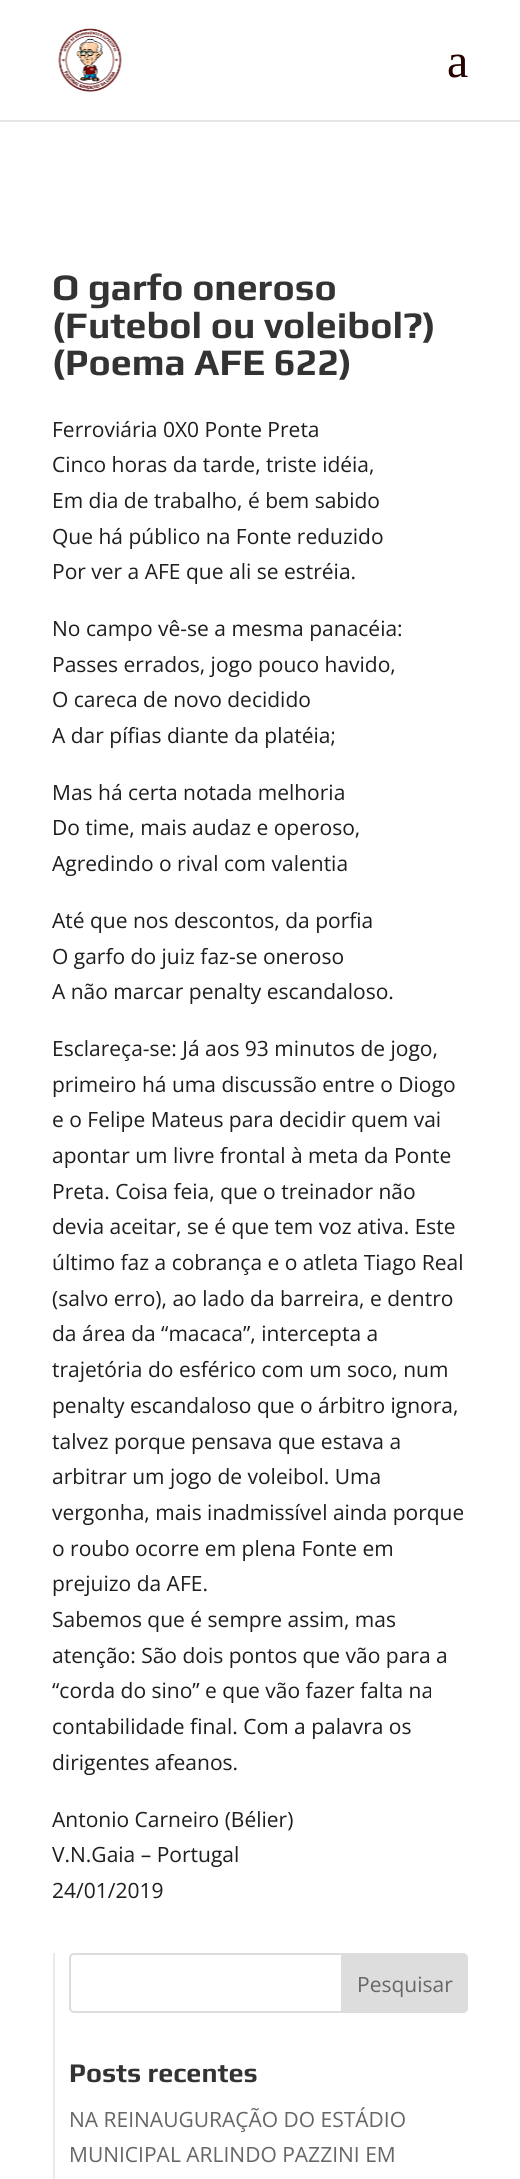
#include <cairo/cairo.h>
#include <math.h>
#include <stddef.h>

typedef struct { double x, y; const char *s; } line_t;
static cairo_t *cr;

static void rgb(unsigned color)
{
	cairo_set_source_rgb(cr, (color >> 16) / 255.0, (color >> 8 & 255) / 255.0, (color & 255) / 255.0);
}

static void rrect(double x, double y, double w, double h, double r)
{
	cairo_new_sub_path(cr);
	cairo_arc(cr, x + w - r, y + h - r, r, 0, M_PI / 2);
	cairo_arc(cr, x + r, y + h - r, r, M_PI / 2, M_PI);
	cairo_arc(cr, x + r, y + r, r, M_PI, 1.5 * M_PI);
	cairo_arc(cr, x + w - r, y + r, r, 1.5 * M_PI, 2 * M_PI);
	cairo_close_path(cr);
}

static void image(const char *path, double x, double y, double w, double h)
{
	cairo_surface_t *image = cairo_image_surface_create_from_png(path);
	cairo_save(cr);
	cairo_set_source_surface(cr, image, x, y);
	cairo_rectangle(cr, x, y, w, h);
	cairo_fill(cr);
	cairo_restore(cr);
	cairo_surface_destroy(image);
}

int main(void) {
	cairo_surface_t *surface = cairo_image_surface_create(CAIRO_FORMAT_RGB24, 520, 2179);
	cr = cairo_create(surface);
	cairo_font_options_t *options = cairo_font_options_create();
	cairo_font_options_set_hint_metrics(options, CAIRO_HINT_METRICS_OFF);
	cairo_font_options_set_hint_style(options, CAIRO_HINT_STYLE_NONE);
	cairo_set_font_options(cr, options);
	cairo_set_miter_limit(cr, 4);
	rgb(0xffffff);
	cairo_paint(cr);
	rgb(0xe6e6e6);
	cairo_new_path(cr);
	cairo_move_to(cr, 0, 120);
	cairo_line_to(cr, 0, 122);
	cairo_line_to(cr, 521, 122);
	cairo_line_to(cr, 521, 2);
	cairo_line_to(cr, 520, 2);
	cairo_line_to(cr, 520, 120);
	cairo_close_path(cr);
	cairo_fill(cr);
	image("img/1.png", 58, 28, 64, 64);
	rgb(0xeaeaea);
	cairo_rectangle(cr, 53, 1953, 2, 226);
	cairo_fill(cr);
	rrect(70, 1954, 397, 58, 4);
	rgb(0xdddddd);
	cairo_stroke(cr);
	cairo_new_path(cr);
	cairo_move_to(cr, 342, 1954);
	cairo_line_to(cr, 463, 1954);
	cairo_curve_to(cr, 465, 1954, 467, 1956, 467, 1958);
	cairo_line_to(cr, 467, 2008);
	cairo_curve_to(cr, 467, 2010, 465, 2012, 463, 2012);
	cairo_line_to(cr, 342, 2012);
	cairo_close_path(cr);
	cairo_fill_preserve(cr);
	cairo_stroke(cr);
	cairo_select_font_face(cr, "Liberation Serif", CAIRO_FONT_SLANT_NORMAL, CAIRO_FONT_WEIGHT_NORMAL);
	cairo_set_font_size(cr, 48);
	rgb(0x270000);
	cairo_move_to(cr, 447, 77);
	cairo_show_text(cr, "a");
	cairo_select_font_face(cr, "Play", CAIRO_FONT_SLANT_NORMAL, CAIRO_FONT_WEIGHT_BOLD);
	cairo_set_font_size(cr, 37.5);
	rgb(0x333333);
	{
		static const line_t items[] = {
			{52, 300, "O garfo oneroso"},
			{52, 338, "(Futebol ou voleibol?)"},
			{52, 375, "(Poema AFE 622)"},
		};
		for (size_t i = 0; i < sizeof items / sizeof *items; i++) {
			cairo_move_to(cr, items[i].x, items[i].y);
			cairo_show_text(cr, items[i].s);
		}
	}
	cairo_select_font_face(cr, "Open Sans", CAIRO_FONT_SLANT_NORMAL, CAIRO_FONT_WEIGHT_NORMAL);
	cairo_set_font_size(cr, 21);
	rgb(0x1e1e1e);
	{
		static const line_t items[] = {
			{52, 437, "Ferroviária 0X0 Ponte Preta"},
			{52, 472, "Cinco horas da tarde, triste idéia,"},
			{52, 508, "Em dia de trabalho, é bem sabido"},
			{52, 544, "Que há público na Fonte reduzido"},
			{52, 579, "Por ver a AFE que ali se estréia."},
			{52, 636, "No campo vê-se a mesma panacéia:"},
			{52, 672, "Passes errados, jogo pouco havido,"},
			{52, 707, "O careca de novo decidido"},
			{52, 743, "A dar pífias diante da platéia;"},
			{52, 800, "Mas há certa notada melhoria"},
			{52, 835, "Do time, mais audaz e operoso,"},
			{52, 871, "Agredindo o rival com valentia"},
			{52, 928, "Até que nos descontos, da porfia"},
			{52, 964, "O garfo do juiz faz-se oneroso"},
			{52, 999, "A não marcar penalty escandaloso."},
			{52, 1056, "Esclareça-se: Já aos 93 minutos de jogo,"},
			{52, 1092, "primeiro há uma discussão entre o Diogo"},
			{52, 1127, "e o Felipe Mateus para decidir quem vai"},
			{52, 1163, "apontar um livre frontal à meta da Ponte"},
			{52, 1199, "Preta. Coisa feia, que o treinador não"},
			{52, 1234, "devia aceitar, se é que tem voz ativa. Este"},
			{52, 1270, "último faz a cobrança e o atleta Tiago Real"},
			{52, 1306, "(salvo erro), ao lado da barreira, e dentro"},
			{52, 1341, "da área da “macaca”, intercepta a"},
			{52, 1377, "trajetória do esférico com um soco, num"},
			{52, 1413, "penalty escandaloso que o árbitro ignora,"},
			{52, 1449, "talvez porque pensava que estava a"},
			{52, 1484, "arbitrar um jogo de voleibol. Uma"},
			{52, 1520, "vergonha, mais inadmissível ainda porque"},
			{52, 1556, "o roubo ocorre em plena Fonte em"},
			{52, 1591, "prejuizo da AFE."},
			{52, 1627, "Sabemos que é sempre assim, mas"},
			{52, 1663, "atenção: São dois pontos que vão para a"},
			{52, 1698, "“corda do sino” e que vão fazer falta na"},
			{52, 1734, "contabilidade final. Com a palavra os"},
			{52, 1770, "dirigentes afeanos."},
			{52, 1827, "Antonio Carneiro (Bélier)"},
			{52, 1862, "V.N.Gaia – Portugal"},
			{52, 1898, "24/01/2019"},
		};
		for (size_t i = 0; i < sizeof items / sizeof *items; i++) {
			cairo_move_to(cr, items[i].x, items[i].y);
			cairo_show_text(cr, items[i].s);
		}
	}
	rgb(0x666666);
	cairo_move_to(cr, 357, 1992);
	cairo_show_text(cr, "Pesquisar");
	cairo_select_font_face(cr, "Play", CAIRO_FONT_SLANT_NORMAL, CAIRO_FONT_WEIGHT_BOLD);
	cairo_set_font_size(cr, 27);
	rgb(0x333333);
	cairo_move_to(cr, 69, 2082);
	cairo_show_text(cr, "Posts recentes");
	cairo_select_font_face(cr, "Open Sans", CAIRO_FONT_SLANT_NORMAL, CAIRO_FONT_WEIGHT_NORMAL);
	cairo_set_font_size(cr, 21);
	rgb(0x666666);
	cairo_move_to(cr, 69, 2127);
	cairo_show_text(cr, "NA REINAUGURAÇÃO DO ESTÁDIO");
	cairo_move_to(cr, 69, 2162);
	cairo_show_text(cr, "MUNICIPAL ARLINDO PAZZINI EM");
	cairo_surface_write_to_png(surface, "page.png");
	cairo_font_options_destroy(options);
	cairo_destroy(cr);
	cairo_surface_destroy(surface);
	return 0;
}
